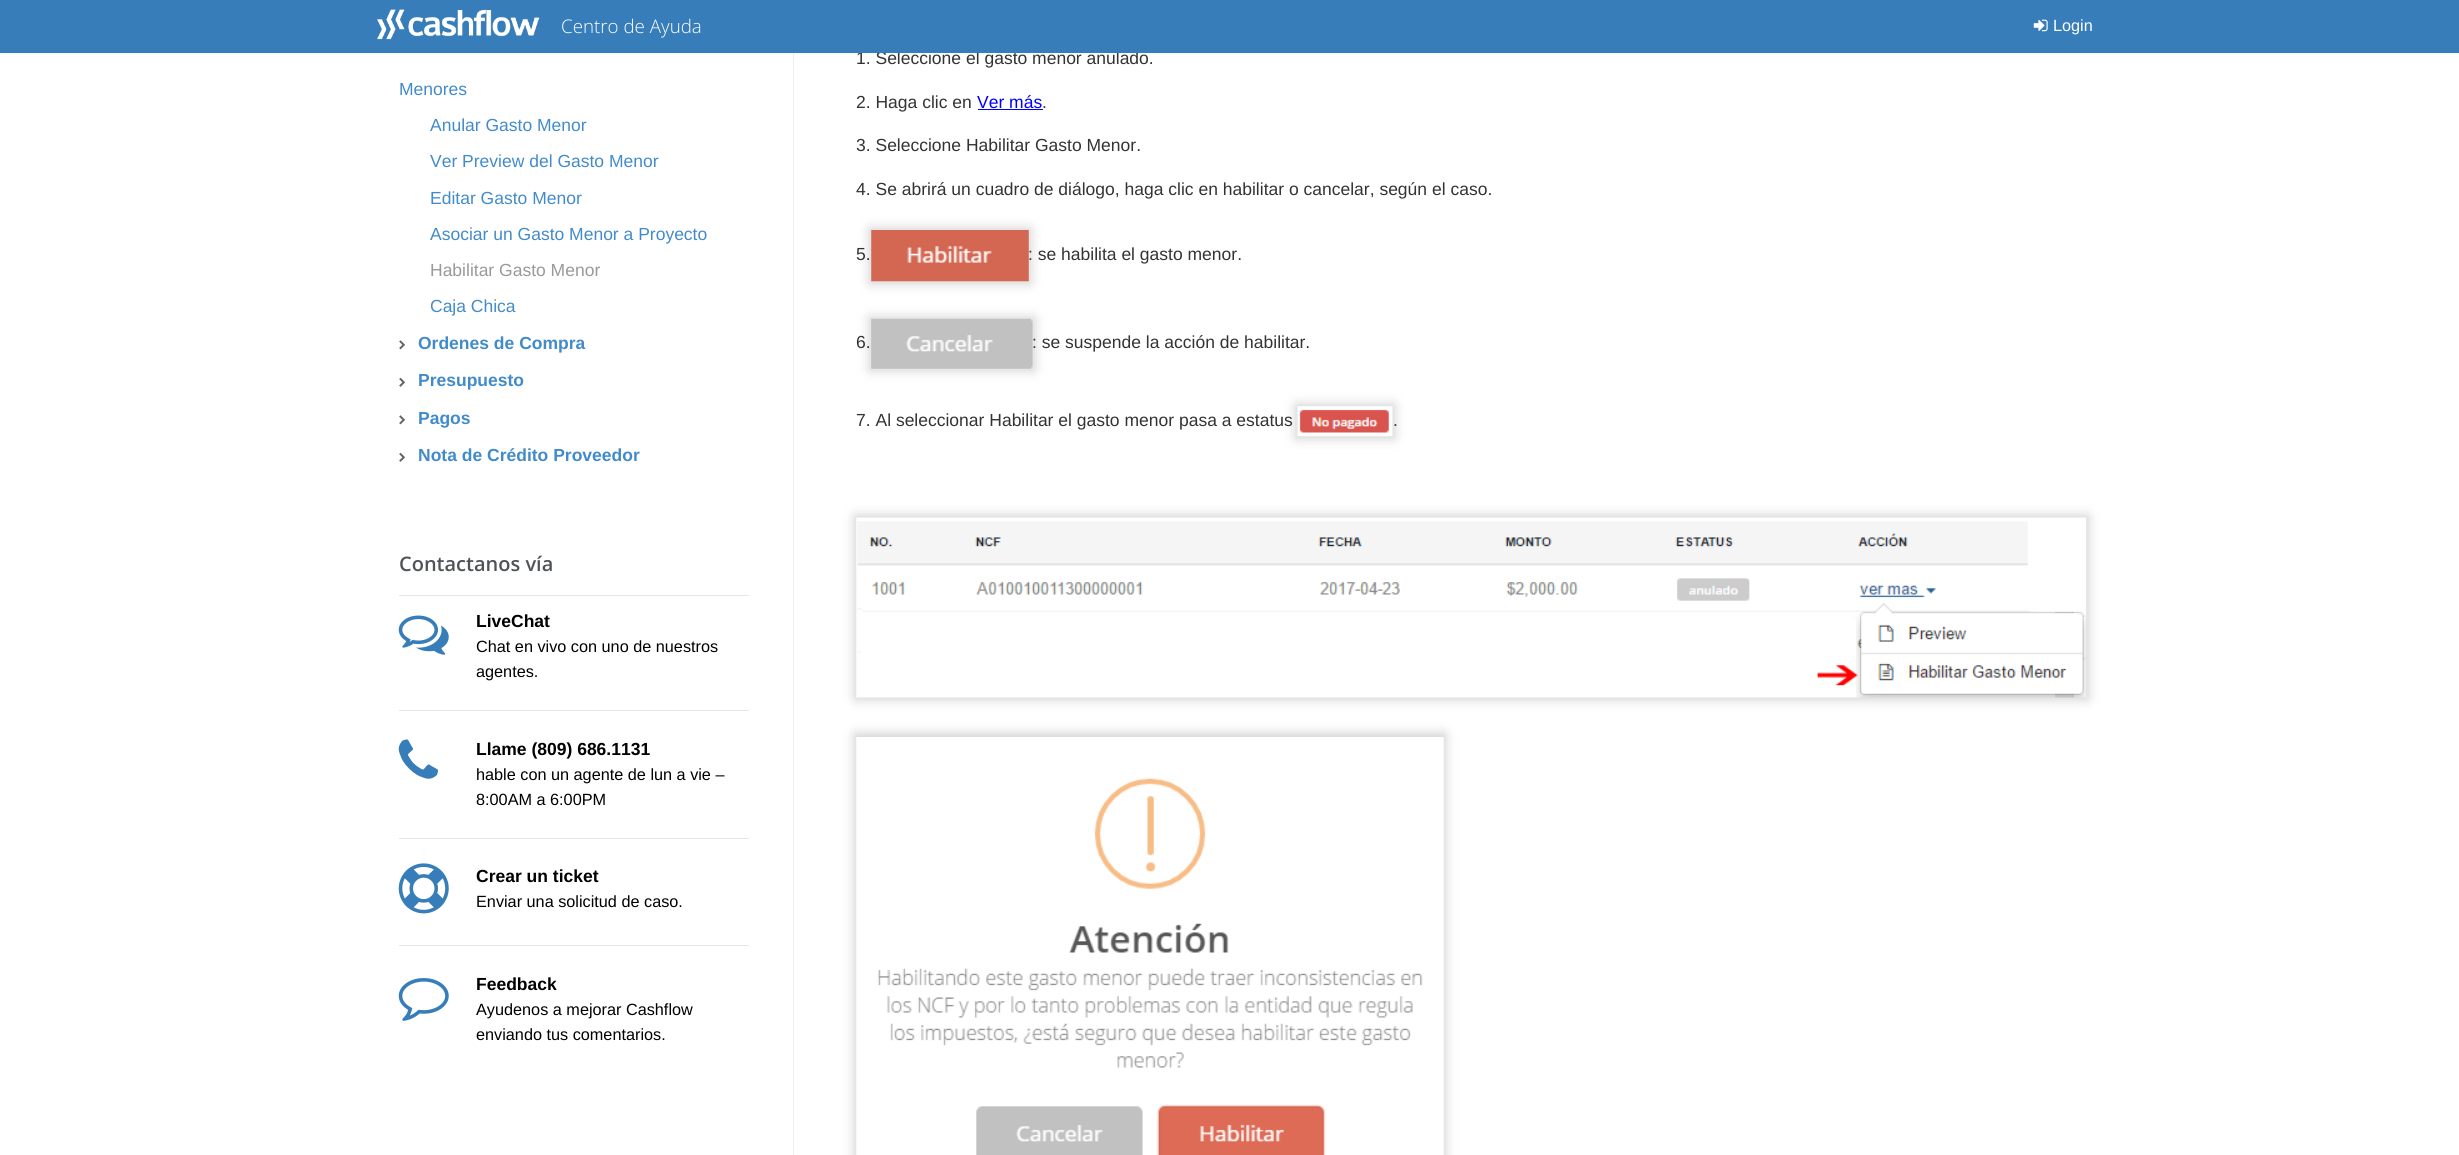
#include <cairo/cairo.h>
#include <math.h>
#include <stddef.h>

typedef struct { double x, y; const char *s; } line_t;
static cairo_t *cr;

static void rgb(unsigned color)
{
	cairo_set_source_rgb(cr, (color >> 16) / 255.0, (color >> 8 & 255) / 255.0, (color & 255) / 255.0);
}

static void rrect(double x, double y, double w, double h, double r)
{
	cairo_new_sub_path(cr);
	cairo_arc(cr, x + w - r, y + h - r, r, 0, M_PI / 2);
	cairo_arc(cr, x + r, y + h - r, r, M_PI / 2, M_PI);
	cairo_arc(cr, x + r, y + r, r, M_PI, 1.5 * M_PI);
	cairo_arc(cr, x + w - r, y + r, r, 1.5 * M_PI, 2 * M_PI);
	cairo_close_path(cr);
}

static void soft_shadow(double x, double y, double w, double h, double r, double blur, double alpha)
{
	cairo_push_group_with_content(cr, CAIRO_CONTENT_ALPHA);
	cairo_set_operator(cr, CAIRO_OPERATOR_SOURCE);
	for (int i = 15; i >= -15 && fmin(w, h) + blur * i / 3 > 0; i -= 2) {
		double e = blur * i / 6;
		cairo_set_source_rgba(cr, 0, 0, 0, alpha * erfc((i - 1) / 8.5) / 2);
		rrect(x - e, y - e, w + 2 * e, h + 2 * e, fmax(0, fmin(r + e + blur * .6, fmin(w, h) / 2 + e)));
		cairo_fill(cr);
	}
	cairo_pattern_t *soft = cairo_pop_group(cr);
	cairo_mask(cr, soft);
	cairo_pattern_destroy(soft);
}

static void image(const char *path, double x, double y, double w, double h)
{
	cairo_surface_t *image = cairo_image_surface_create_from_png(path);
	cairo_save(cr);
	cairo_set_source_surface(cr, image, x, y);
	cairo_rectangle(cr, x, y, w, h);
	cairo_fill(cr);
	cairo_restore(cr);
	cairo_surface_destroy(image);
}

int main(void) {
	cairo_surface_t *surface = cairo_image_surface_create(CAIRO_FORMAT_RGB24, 2459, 1155);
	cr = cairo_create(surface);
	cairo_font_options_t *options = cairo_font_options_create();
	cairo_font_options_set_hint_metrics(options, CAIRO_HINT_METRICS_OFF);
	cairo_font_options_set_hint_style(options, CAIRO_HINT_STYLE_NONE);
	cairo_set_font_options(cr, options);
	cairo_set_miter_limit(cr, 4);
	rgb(0xffffff);
	cairo_paint(cr);
	image("img/3.png", 399, 340, 6, 10);
	image("img/4.png", 399, 377, 6, 10);
	image("img/3.png", 399, 415, 6, 10);
	image("img/4.png", 399, 452, 6, 10);
	rgb(0xe5e5e5);
	cairo_rectangle(cr, 399, 595, 350, 1);
	cairo_fill(cr);
	cairo_rectangle(cr, 399, 710, 350, 1);
	cairo_fill(cr);
	image("img/5.png", 398, 615, 51, 40);
	cairo_rectangle(cr, 399, 838, 350, 1);
	cairo_fill(cr);
	image("img/6.png", 398, 739, 40, 40);
	cairo_rectangle(cr, 399, 945, 350, 1);
	cairo_fill(cr);
	image("img/7.png", 398, 863, 51, 51);
	image("img/8.png", 398, 978, 51, 43);
	rgb(0xeeeeee);
	cairo_rectangle(cr, 793, 53, 1, 1102);
	cairo_fill(cr);
	rgb(0x0000ff);
	cairo_rectangle(cr, 978, 109, 65, 1);
	cairo_fill(cr);
	rgb(0x000000);
	soft_shadow(870, 229, 160, 54, 0, 6, 0.2);
	image("img/9.png", 871, 230, 158, 52);
	soft_shadow(870, 318, 164, 52, 0, 6, 0.2);
	image("img/10.png", 871, 318, 162, 51);
	soft_shadow(1296, 405, 98, 33, 0, 6, 0.2);
	image("img/11.png", 1297, 406, 96, 31);
	soft_shadow(855, 516, 1233, 183, 0, 6, 0.2);
	image("img/12.png", 856, 517, 1231, 181);
	soft_shadow(855, 734, 590, 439, 0, 6, 0.2);
	image("img/13.png", 856, 737, 588, 418);
	cairo_select_font_face(cr, "Liberation Sans", CAIRO_FONT_SLANT_NORMAL, CAIRO_FONT_WEIGHT_NORMAL);
	cairo_set_font_size(cr, 17.5);
	rgb(0x428bca);
	{
		static const line_t items[] = {
			{399, 95, "Menores"},
			{430, 131, "Anular Gasto Menor"},
			{430, 167, "Ver Preview del Gasto Menor"},
			{430, 204, "Editar Gasto Menor"},
			{430, 240, "Asociar un Gasto Menor a Proyecto"},
		};
		for (size_t i = 0; i < sizeof items / sizeof *items; i++) {
			cairo_move_to(cr, items[i].x, items[i].y);
			cairo_show_text(cr, items[i].s);
		}
	}
	rgb(0x999999);
	cairo_move_to(cr, 430, 276);
	cairo_show_text(cr, "Habilitar Gasto Menor");
	rgb(0x428bca);
	cairo_move_to(cr, 430, 312);
	cairo_show_text(cr, "Caja Chica");
	cairo_select_font_face(cr, "Liberation Sans", CAIRO_FONT_SLANT_NORMAL, CAIRO_FONT_WEIGHT_BOLD);
	{
		static const line_t items[] = {
			{418, 349, "Ordenes de Compra"},
			{418, 386, "Presupuesto"},
			{418, 424, "Pagos"},
			{418, 461, "Nota de Crédito Proveedor"},
		};
		for (size_t i = 0; i < sizeof items / sizeof *items; i++) {
			cairo_move_to(cr, items[i].x, items[i].y);
			cairo_show_text(cr, items[i].s);
		}
	}
	cairo_select_font_face(cr, "Open Sans SemiBold", CAIRO_FONT_SLANT_NORMAL, CAIRO_FONT_WEIGHT_NORMAL);
	cairo_set_font_size(cr, 20);
	rgb(0x505458);
	cairo_move_to(cr, 399, 571);
	cairo_show_text(cr, "Contactanos vía");
	cairo_select_font_face(cr, "Liberation Sans", CAIRO_FONT_SLANT_NORMAL, CAIRO_FONT_WEIGHT_BOLD);
	cairo_set_font_size(cr, 17.5);
	rgb(0x000000);
	cairo_move_to(cr, 476, 627);
	cairo_show_text(cr, "LiveChat");
	cairo_select_font_face(cr, "Liberation Sans", CAIRO_FONT_SLANT_NORMAL, CAIRO_FONT_WEIGHT_NORMAL);
	cairo_set_font_size(cr, 16.25);
	cairo_move_to(cr, 476, 652);
	cairo_show_text(cr, "Chat en vivo con uno de nuestros");
	cairo_move_to(cr, 476, 677);
	cairo_show_text(cr, "agentes.");
	cairo_select_font_face(cr, "Liberation Sans", CAIRO_FONT_SLANT_NORMAL, CAIRO_FONT_WEIGHT_BOLD);
	cairo_set_font_size(cr, 17.5);
	cairo_move_to(cr, 476, 755);
	cairo_show_text(cr, "Llame (809) 686.1131");
	cairo_select_font_face(cr, "Liberation Sans", CAIRO_FONT_SLANT_NORMAL, CAIRO_FONT_WEIGHT_NORMAL);
	cairo_set_font_size(cr, 16.25);
	cairo_move_to(cr, 476, 780);
	cairo_show_text(cr, "hable con un agente de lun a vie –");
	cairo_move_to(cr, 476, 805);
	cairo_show_text(cr, "8:00AM a 6:00PM");
	cairo_select_font_face(cr, "Liberation Sans", CAIRO_FONT_SLANT_NORMAL, CAIRO_FONT_WEIGHT_BOLD);
	cairo_set_font_size(cr, 17.5);
	cairo_move_to(cr, 476, 882);
	cairo_show_text(cr, "Crear un ticket");
	cairo_select_font_face(cr, "Liberation Sans", CAIRO_FONT_SLANT_NORMAL, CAIRO_FONT_WEIGHT_NORMAL);
	cairo_set_font_size(cr, 16.25);
	cairo_move_to(cr, 476, 907);
	cairo_show_text(cr, "Enviar una solicitud de caso.");
	cairo_select_font_face(cr, "Liberation Sans", CAIRO_FONT_SLANT_NORMAL, CAIRO_FONT_WEIGHT_BOLD);
	cairo_set_font_size(cr, 17.5);
	cairo_move_to(cr, 476, 990);
	cairo_show_text(cr, "Feedback");
	cairo_select_font_face(cr, "Liberation Sans", CAIRO_FONT_SLANT_NORMAL, CAIRO_FONT_WEIGHT_NORMAL);
	cairo_set_font_size(cr, 16.25);
	cairo_move_to(cr, 476, 1015);
	cairo_show_text(cr, "Ayudenos a mejorar Cashflow");
	cairo_move_to(cr, 476, 1040);
	cairo_show_text(cr, "enviando tus comentarios.");
	cairo_set_font_size(cr, 17.5);
	rgb(0x333333);
	cairo_move_to(cr, 856, 64);
	cairo_show_text(cr, "1. Seleccione el gasto menor anulado.");
	rgb(0x377dba);
	cairo_rectangle(cr, 0, 0, 2459, 53);
	cairo_fill(cr);
	cairo_set_font_size(cr, 16.25);
	rgb(0xffffff);
	cairo_move_to(cr, 2053, 31);
	cairo_show_text(cr, "Login");
	image("img/2.png", 2033, 19, 15, 13);
	cairo_select_font_face(cr, "Open Sans Light", CAIRO_FONT_SLANT_NORMAL, CAIRO_FONT_WEIGHT_NORMAL);
	cairo_set_font_size(cr, 18.75);
	cairo_move_to(cr, 561, 33);
	cairo_show_text(cr, "Centro de Ayuda");
	image("img/1.png", 377, 9, 163, 31);
	cairo_select_font_face(cr, "Liberation Sans", CAIRO_FONT_SLANT_NORMAL, CAIRO_FONT_WEIGHT_NORMAL);
	cairo_set_font_size(cr, 17.5);
	rgb(0x333333);
	cairo_move_to(cr, 856, 108);
	cairo_show_text(cr, "2. Haga clic en");
	rgb(0x0000ff);
	cairo_move_to(cr, 977, 108);
	cairo_show_text(cr, "Ver más");
	rgb(0x333333);
	{
		static const line_t items[] = {
			{1042, 108, "."},
			{856, 151, "3. Seleccione Habilitar Gasto Menor."},
			{856, 195, "4. Se abrirá un cuadro de diálogo, haga clic en habilitar o cancelar, según el caso."},
			{856, 260, "5."},
			{1028, 260, ": se habilita el gasto menor."},
			{856, 348, "6."},
			{1032, 348, ": se suspende la acción de habilitar."},
			{856, 426, "7. Al seleccionar Habilitar el gasto menor pasa a estatus"},
			{1393, 426, "."},
		};
		for (size_t i = 0; i < sizeof items / sizeof *items; i++) {
			cairo_move_to(cr, items[i].x, items[i].y);
			cairo_show_text(cr, items[i].s);
		}
	}
	cairo_surface_write_to_png(surface, "page.png");
	cairo_font_options_destroy(options);
	cairo_destroy(cr);
	cairo_surface_destroy(surface);
	return 0;
}
